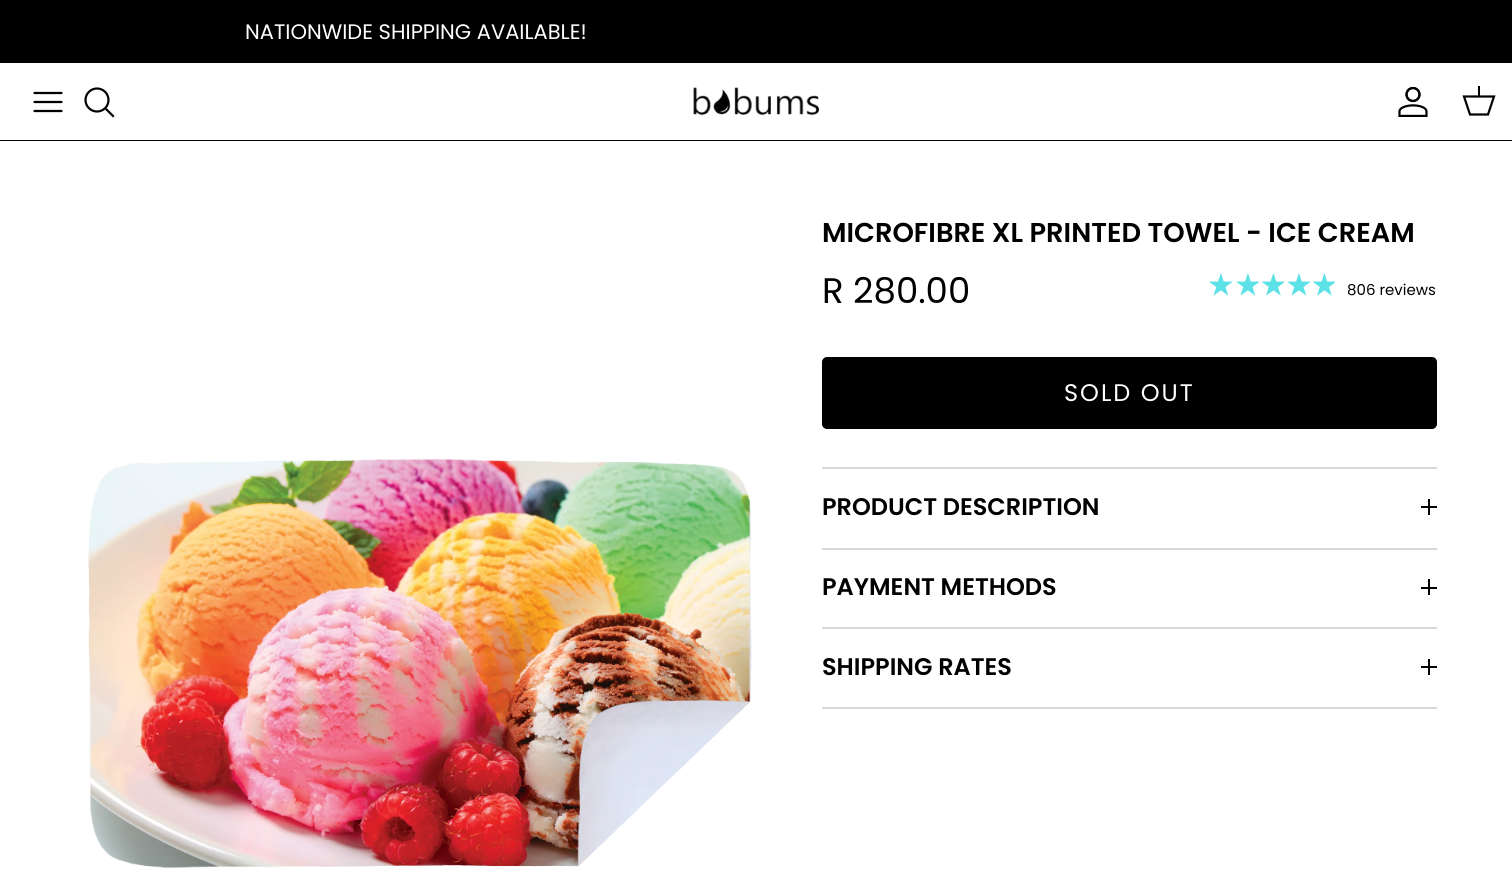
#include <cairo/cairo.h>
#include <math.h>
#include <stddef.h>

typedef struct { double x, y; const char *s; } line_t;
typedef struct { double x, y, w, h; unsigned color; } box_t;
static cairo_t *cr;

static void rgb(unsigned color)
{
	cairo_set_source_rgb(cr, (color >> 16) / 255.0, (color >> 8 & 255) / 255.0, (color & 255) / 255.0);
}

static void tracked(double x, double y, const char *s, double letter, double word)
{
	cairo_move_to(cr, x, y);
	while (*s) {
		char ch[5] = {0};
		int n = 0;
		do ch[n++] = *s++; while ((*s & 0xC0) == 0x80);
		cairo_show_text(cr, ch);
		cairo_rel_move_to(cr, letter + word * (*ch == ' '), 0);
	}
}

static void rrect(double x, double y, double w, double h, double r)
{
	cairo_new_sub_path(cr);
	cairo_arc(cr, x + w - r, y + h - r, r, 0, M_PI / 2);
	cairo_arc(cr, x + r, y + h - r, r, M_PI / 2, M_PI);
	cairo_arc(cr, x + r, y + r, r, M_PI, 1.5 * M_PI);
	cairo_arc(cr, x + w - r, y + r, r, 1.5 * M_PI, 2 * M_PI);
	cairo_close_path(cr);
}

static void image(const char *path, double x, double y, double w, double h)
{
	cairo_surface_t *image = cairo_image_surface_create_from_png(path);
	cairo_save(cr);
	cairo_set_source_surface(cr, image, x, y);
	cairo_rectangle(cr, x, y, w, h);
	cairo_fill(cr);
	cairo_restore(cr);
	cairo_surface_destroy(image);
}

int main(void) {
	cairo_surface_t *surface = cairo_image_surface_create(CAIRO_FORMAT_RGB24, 1512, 893);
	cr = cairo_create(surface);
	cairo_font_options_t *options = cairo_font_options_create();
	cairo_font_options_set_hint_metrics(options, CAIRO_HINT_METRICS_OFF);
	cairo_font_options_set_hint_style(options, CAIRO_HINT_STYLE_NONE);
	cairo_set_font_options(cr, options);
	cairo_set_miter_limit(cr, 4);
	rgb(0xffffff);
	cairo_paint(cr);
	rgb(0x000000);
	cairo_rectangle(cr, 0, 0, 1512, 63);
	cairo_fill(cr);
	cairo_rectangle(cr, 0, 140, 1512, 1);
	cairo_fill(cr);
	cairo_new_path(cr);
	cairo_move_to(cr, 34.5, 102);
	cairo_line_to(cr, 61.5, 102);
	cairo_move_to(cr, 34.5, 93);
	cairo_line_to(cr, 61.5, 93);
	cairo_move_to(cr, 34.5, 111);
	cairo_line_to(cr, 61.5, 111);
	cairo_set_line_width(cr, 2.2);
	cairo_set_line_cap(cr, CAIRO_LINE_CAP_ROUND);
	cairo_set_line_join(cr, CAIRO_LINE_JOIN_ROUND);
	cairo_stroke(cr);
	cairo_arc(cr, 97, 100, 11.5, 0, 2 * M_PI);
	cairo_set_line_cap(cr, CAIRO_LINE_CAP_BUTT);
	cairo_set_line_join(cr, CAIRO_LINE_JOIN_MITER);
	cairo_stroke(cr);
	cairo_new_path(cr);
	cairo_move_to(cr, 106.5, 109.5);
	cairo_line_to(cr, 113, 116);
	cairo_set_line_cap(cr, CAIRO_LINE_CAP_SQUARE);
	cairo_stroke(cr);
	image("img/1.png", 693, 87, 127, 29);
	image("img/2.png", 1398, 86, 30, 31);
	cairo_new_path(cr);
	cairo_move_to(cr, 1464, 96.5);
	cairo_line_to(cr, 1494, 96.5);
	cairo_line_to(cr, 1488, 114.5);
	cairo_line_to(cr, 1470, 114.5);
	cairo_close_path(cr);
	cairo_set_line_cap(cr, CAIRO_LINE_CAP_BUTT);
	cairo_stroke(cr);
	cairo_rectangle(cr, 1478, 86, 2, 11);
	cairo_fill(cr);
	image("img/3.png", 88, 458, 664, 411);
	image("img/4.png", 1209, 273, 24, 23);
	image("img/5.png", 1236, 273, 23, 23);
	image("img/6.png", 1262, 273, 22, 23);
	image("img/5.png", 1287, 273, 23, 23);
	image("img/6.png", 1313, 273, 22, 23);
	image("img/7.png", 1209, 273, 24, 23);
	image("img/8.png", 1236, 273, 23, 23);
	image("img/9.png", 1262, 273, 22, 23);
	image("img/8.png", 1287, 273, 23, 23);
	image("img/9.png", 1313, 273, 22, 23);
	rrect(823, 358, 613, 70, 4);
	cairo_fill_preserve(cr);
	cairo_set_line_width(cr, 2);
	cairo_stroke(cr);
	{
		static const box_t items[] = {
			{822, 467, 615, 2, 0xd9d9d9},
			{822, 548, 615, 2, 0xd9d9d9},
			{1428, 499, 2, 16, 0x000000},
			{1421, 506, 16, 2, 0x000000},
			{822, 627, 615, 2, 0xd9d9d9},
			{1428, 579, 2, 16, 0x000000},
			{1421, 587, 16, 2, 0x000000},
			{822, 707, 615, 2, 0xd9d9d9},
			{1428, 659, 2, 16, 0x000000},
			{1421, 666, 16, 2, 0x000000},
		};
		for (size_t i = 0; i < sizeof items / sizeof *items; i++) {
			rgb(items[i].color);
			cairo_rectangle(cr, items[i].x, items[i].y, items[i].w, items[i].h);
			cairo_fill(cr);
		}
	}
	cairo_select_font_face(cr, "Poppins", CAIRO_FONT_SLANT_NORMAL, CAIRO_FONT_WEIGHT_NORMAL);
	cairo_set_font_size(cr, 21);
	rgb(0xffffff);
	cairo_move_to(cr, 245, 39);
	cairo_show_text(cr, "NATIONWIDE SHIPPING AVAILABLE!");
	cairo_select_font_face(cr, "Poppins SemiBold", CAIRO_FONT_SLANT_NORMAL, CAIRO_FONT_WEIGHT_NORMAL);
	cairo_set_font_size(cr, 27.25);
	rgb(0x000000);
	cairo_move_to(cr, 822, 242);
	cairo_show_text(cr, "MICROFIBRE XL PRINTED TOWEL - ICE CREAM");
	cairo_select_font_face(cr, "Poppins", CAIRO_FONT_SLANT_NORMAL, CAIRO_FONT_WEIGHT_NORMAL);
	cairo_set_font_size(cr, 35.5);
	cairo_move_to(cr, 822, 303);
	cairo_show_text(cr, "R 280.00");
	cairo_set_font_size(cr, 15);
	cairo_move_to(cr, 1347, 295);
	cairo_show_text(cr, "806 reviews");
	cairo_set_font_size(cr, 24);
	rgb(0xffffff);
	tracked(1064, 401, "SOLD OUT", 2, 0);
	cairo_select_font_face(cr, "Poppins SemiBold", CAIRO_FONT_SLANT_NORMAL, CAIRO_FONT_WEIGHT_NORMAL);
	rgb(0x000000);
	{
		static const line_t items[] = {
			{822, 515, "PRODUCT DESCRIPTION"},
			{822, 595, "PAYMENT METHODS"},
			{822, 675, "SHIPPING RATES"},
		};
		for (size_t i = 0; i < sizeof items / sizeof *items; i++) {
			cairo_move_to(cr, items[i].x, items[i].y);
			cairo_show_text(cr, items[i].s);
		}
	}
	cairo_surface_write_to_png(surface, "page.png");
	cairo_font_options_destroy(options);
	cairo_destroy(cr);
	cairo_surface_destroy(surface);
	return 0;
}
